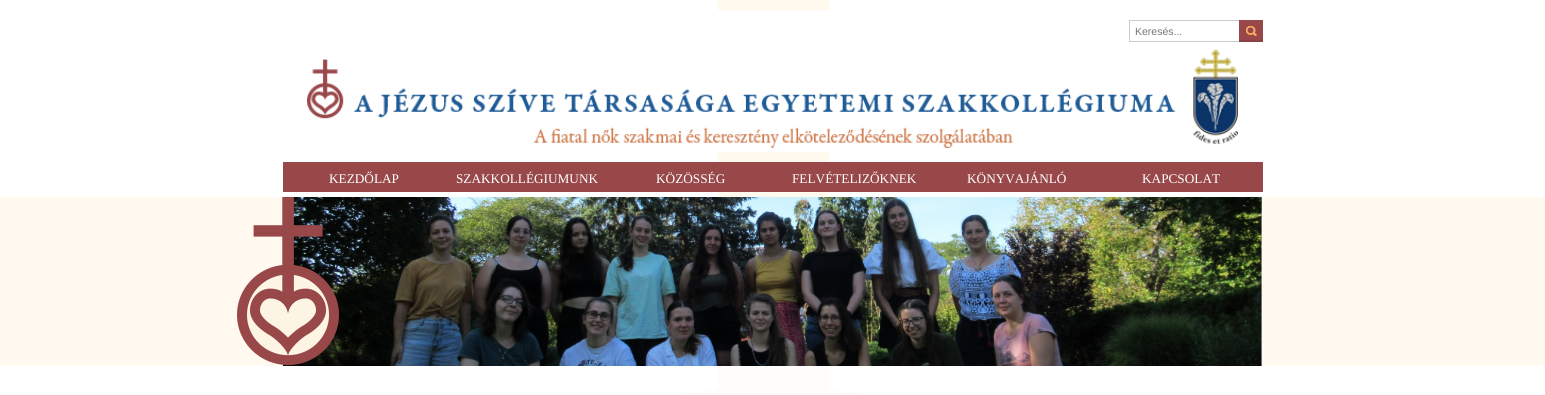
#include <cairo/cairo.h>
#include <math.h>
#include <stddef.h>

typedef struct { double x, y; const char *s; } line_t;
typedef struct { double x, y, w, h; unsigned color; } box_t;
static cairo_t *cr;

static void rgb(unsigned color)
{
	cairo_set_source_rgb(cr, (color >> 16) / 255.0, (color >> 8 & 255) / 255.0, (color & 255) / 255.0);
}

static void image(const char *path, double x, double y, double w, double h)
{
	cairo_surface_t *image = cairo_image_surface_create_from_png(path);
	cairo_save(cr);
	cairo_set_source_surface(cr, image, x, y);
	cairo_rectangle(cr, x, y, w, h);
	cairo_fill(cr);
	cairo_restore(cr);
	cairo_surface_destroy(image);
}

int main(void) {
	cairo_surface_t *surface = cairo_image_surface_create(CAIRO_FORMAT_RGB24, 1545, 395);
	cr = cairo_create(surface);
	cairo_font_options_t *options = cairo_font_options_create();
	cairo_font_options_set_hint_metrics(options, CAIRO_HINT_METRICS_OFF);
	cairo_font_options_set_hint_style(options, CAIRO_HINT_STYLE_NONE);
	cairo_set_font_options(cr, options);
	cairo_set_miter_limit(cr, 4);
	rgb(0xffffff);
	cairo_paint(cr);
	image("img/1.png", 677, 0, 191, 395);
	{
		static const box_t items[] = {
			{677, 10, 191, 142, 0xffffff},
			{1129, 20, 111, 1, 0xcccccc},
			{1129, 41, 111, 1, 0xcccccc},
			{1129, 20, 1, 22, 0xcccccc},
		};
		for (size_t i = 0; i < sizeof items / sizeof *items; i++) {
			rgb(items[i].color);
			cairo_rectangle(cr, items[i].x, items[i].y, items[i].w, items[i].h);
			cairo_fill(cr);
		}
	}
	image("img/2.png", 1239, 20, 24, 22);
	image("img/3.png", 307, 50, 931, 98);
	rgb(0x99484a);
	cairo_rectangle(cr, 283, 162, 980, 30);
	cairo_fill(cr);
	rgb(0xfff9ef);
	cairo_rectangle(cr, 0, 197, 1545, 169);
	cairo_fill(cr);
	image("img/5.png", 283, 197, 979, 169);
	image("img/4.png", 237, 197, 102, 168);
	cairo_set_source_rgba(cr, 1, 1, 1, 0.75);
	cairo_rectangle(cr, 678, 366, 189, 29);
	cairo_fill(cr);
	cairo_select_font_face(cr, "Liberation Sans", CAIRO_FONT_SLANT_NORMAL, CAIRO_FONT_WEIGHT_NORMAL);
	cairo_set_font_size(cr, 10.5);
	rgb(0x757575);
	cairo_move_to(cr, 1135, 35);
	cairo_show_text(cr, "Keresés...");
	cairo_select_font_face(cr, "Liberation Serif", CAIRO_FONT_SLANT_NORMAL, CAIRO_FONT_WEIGHT_NORMAL);
	cairo_set_font_size(cr, 13.25);
	rgb(0xffffff);
	{
		static const line_t items[] = {
			{329, 183, "KEZDŐLAP"},
			{456, 183, "SZAKKOLLÉGIUMUNK"},
			{656, 183, "KÖZÖSSÉG"},
			{792, 183, "FELVÉTELIZŐKNEK"},
			{967, 183, "KÖNYVAJÁNLÓ"},
			{1142, 183, "KAPCSOLAT"},
		};
		for (size_t i = 0; i < sizeof items / sizeof *items; i++) {
			cairo_move_to(cr, items[i].x, items[i].y);
			cairo_show_text(cr, items[i].s);
		}
	}
	cairo_surface_write_to_png(surface, "page.png");
	cairo_font_options_destroy(options);
	cairo_destroy(cr);
	cairo_surface_destroy(surface);
	return 0;
}
